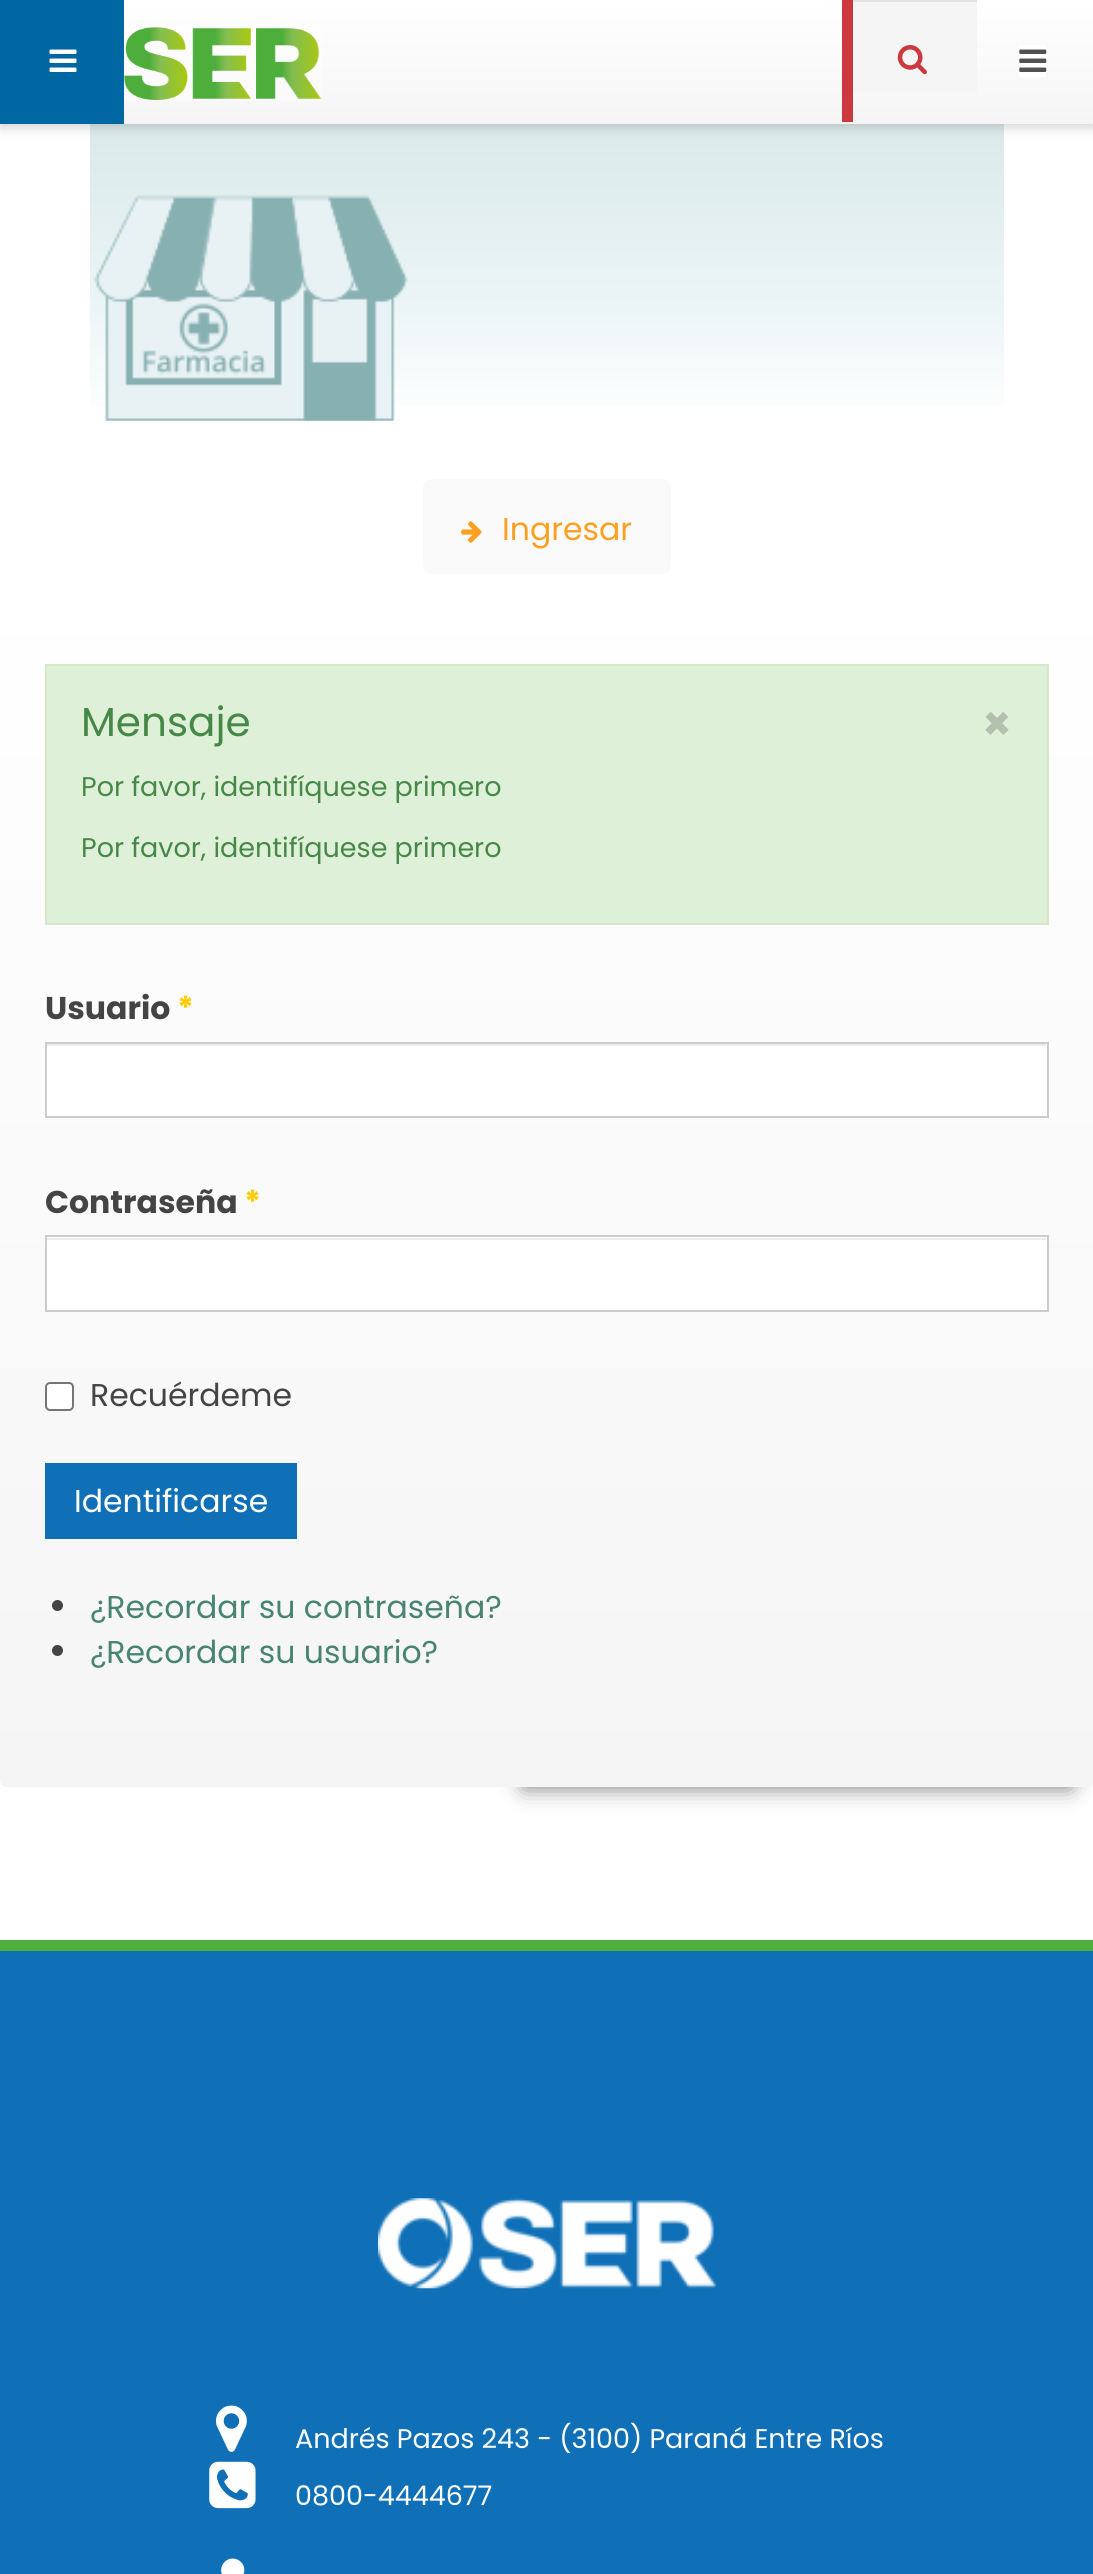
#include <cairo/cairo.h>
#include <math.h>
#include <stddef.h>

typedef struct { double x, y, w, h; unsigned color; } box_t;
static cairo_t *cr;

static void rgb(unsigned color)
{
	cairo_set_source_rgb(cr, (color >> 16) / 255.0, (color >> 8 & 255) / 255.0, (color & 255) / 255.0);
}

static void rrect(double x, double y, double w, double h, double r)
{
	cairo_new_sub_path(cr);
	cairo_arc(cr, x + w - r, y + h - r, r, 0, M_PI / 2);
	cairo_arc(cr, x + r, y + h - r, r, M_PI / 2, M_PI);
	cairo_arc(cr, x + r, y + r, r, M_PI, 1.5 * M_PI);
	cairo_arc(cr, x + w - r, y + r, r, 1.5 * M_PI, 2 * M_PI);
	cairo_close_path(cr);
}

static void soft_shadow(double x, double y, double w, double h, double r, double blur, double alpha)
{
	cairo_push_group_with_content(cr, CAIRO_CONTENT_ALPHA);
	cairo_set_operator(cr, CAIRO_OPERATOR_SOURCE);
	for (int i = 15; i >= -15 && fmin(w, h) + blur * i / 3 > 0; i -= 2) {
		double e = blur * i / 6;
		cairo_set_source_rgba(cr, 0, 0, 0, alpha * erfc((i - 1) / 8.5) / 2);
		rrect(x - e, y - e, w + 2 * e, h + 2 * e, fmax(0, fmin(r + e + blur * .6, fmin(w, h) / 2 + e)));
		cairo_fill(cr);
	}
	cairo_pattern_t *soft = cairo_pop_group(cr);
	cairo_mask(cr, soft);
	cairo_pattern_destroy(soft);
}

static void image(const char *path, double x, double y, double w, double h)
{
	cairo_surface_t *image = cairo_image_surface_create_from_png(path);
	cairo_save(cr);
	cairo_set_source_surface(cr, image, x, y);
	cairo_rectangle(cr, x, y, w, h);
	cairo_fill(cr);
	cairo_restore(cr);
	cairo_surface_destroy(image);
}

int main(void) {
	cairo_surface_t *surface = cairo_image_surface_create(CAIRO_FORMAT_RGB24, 1093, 2574);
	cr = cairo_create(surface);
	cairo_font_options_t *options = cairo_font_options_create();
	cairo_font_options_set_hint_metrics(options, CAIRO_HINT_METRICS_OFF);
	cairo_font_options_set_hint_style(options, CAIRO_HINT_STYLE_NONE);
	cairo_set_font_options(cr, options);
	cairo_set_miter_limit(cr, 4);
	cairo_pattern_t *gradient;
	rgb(0xffffff);
	cairo_paint(cr);
	gradient = cairo_pattern_create_linear(547, 99, 547, 421);
	cairo_pattern_add_color_stop_rgba(gradient, 0, 0.847, 0.91, 0.906, 1);
	cairo_pattern_add_color_stop_rgba(gradient, 0.65, 0.925, 0.961, 0.965, 1);
	cairo_pattern_add_color_stop_rgba(gradient, 1, 1, 1, 1, 1);
	cairo_set_source(cr, gradient);
	cairo_pattern_destroy(gradient);
	cairo_rectangle(cr, 90, 124, 914, 282);
	cairo_fill(cr);
	rgb(0x323232);
	soft_shadow(0, 5, 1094, 123, 0, 5.5, 0.2);
	gradient = cairo_pattern_create_linear(547, 0, 547, 124);
	cairo_pattern_add_color_stop_rgba(gradient, 0, 1, 1, 1, 1);
	cairo_pattern_add_color_stop_rgba(gradient, 1, 0.961, 0.961, 0.961, 1);
	cairo_set_source(cr, gradient);
	cairo_pattern_destroy(gradient);
	cairo_rectangle(cr, 124, 0, 969, 124);
	cairo_fill(cr);
	rgb(0x0067a2);
	cairo_rectangle(cr, 0, 0, 124, 124);
	cairo_fill(cr);
	image("img/1.png", 49, 49, 28, 23);
	image("img/2.png", 124, 25, 198, 76);
	{
		static const box_t items[] = {
			{842, 0, 11, 122, 0xcb383d},
			{853, 2, 124, 91, 0xf5f5f5},
			{853, 0, 124, 2, 0xe3e3e3},
		};
		for (size_t i = 0; i < sizeof items / sizeof *items; i++) {
			rgb(items[i].color);
			cairo_rectangle(cr, items[i].x, items[i].y, items[i].w, items[i].h);
			cairo_fill(cr);
		}
	}
	image("img/3.png", 897, 45, 30, 30);
	rgb(0xffffff);
	cairo_rectangle(cr, 1019, 45, 27, 32);
	cairo_fill(cr);
	image("img/4.png", 1019, 49, 28, 23);
	image("img/5.png", 94, 195, 314, 226);
	rgb(0xfafafa);
	rrect(423, 479, 248, 95, 9);
	cairo_fill(cr);
	image("img/6.png", 461, 521, 21, 22);
	rgb(0x777777);
	soft_shadow(524, 1577, 547, 210, 0, 11.5, 1);
	gradient = cairo_pattern_create_linear(547, 574, 547, 1787);
	cairo_pattern_add_color_stop_rgba(gradient, 0, 1, 1, 1, 1);
	cairo_pattern_add_color_stop_rgba(gradient, 1, 0.961, 0.961, 0.961, 1);
	cairo_set_source(cr, gradient);
	cairo_pattern_destroy(gradient);
	rrect(0, 574, 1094, 1213, 7);
	cairo_fill(cr);
	rgb(0xdff0d8);
	cairo_rectangle(cr, 46, 665, 1002, 259);
	cairo_fill_preserve(cr);
	rgb(0xd6e9c6);
	cairo_stroke(cr);
	rgb(0xffffff);
	cairo_rectangle(cr, 47, 1044, 1000, 72);
	cairo_fill(cr);
	rgb(0xececec);
	cairo_rectangle(cr, 47, 1044, 999, 2);
	cairo_fill(cr);
	cairo_rectangle(cr, 46, 1043, 1002, 74);
	rgb(0xcccccc);
	cairo_stroke(cr);
	rgb(0xffffff);
	cairo_rectangle(cr, 47, 1237, 1000, 73);
	cairo_fill(cr);
	rgb(0xececec);
	cairo_rectangle(cr, 47, 1238, 999, 2);
	cairo_fill(cr);
	cairo_rectangle(cr, 46, 1236, 1002, 75);
	rgb(0xcccccc);
	cairo_stroke(cr);
	rgb(0xffffff);
	rrect(46, 1383, 27, 27, 4);
	cairo_fill_preserve(cr);
	rgb(0x767676);
	cairo_stroke(cr);
	rgb(0x0f70b7);
	cairo_rectangle(cr, 45, 1463, 252, 76);
	cairo_fill(cr);
	rgb(0x444444);
	cairo_arc(cr, 57.5, 1605.5, 5.5, 0, 2 * M_PI);
	cairo_fill(cr);
	cairo_arc(cr, 57.5, 1650.5, 5.5, 0, 2 * M_PI);
	cairo_fill(cr);
	rgb(0x0f70b7);
	cairo_rectangle(cr, 0, 1951, 1093, 623);
	cairo_fill(cr);
	rgb(0x4fae3c);
	cairo_rectangle(cr, 0, 1940, 1093, 11);
	cairo_fill(cr);
	image("img/7.png", 378, 2198, 338, 91);
	image("img/8.png", 216, 2405, 31, 47);
	image("img/9.png", 209, 2461, 47, 48);
	image("img/10.png", 221, 2558, 24, 16);
	cairo_select_font_face(cr, "Poppins", CAIRO_FONT_SLANT_NORMAL, CAIRO_FONT_WEIGHT_NORMAL);
	cairo_set_font_size(cr, 31.5);
	rgb(0xff9f21);
	cairo_move_to(cr, 502, 540);
	cairo_show_text(cr, "Ingresar");
	cairo_set_font_size(cr, 40.5);
	rgb(0x468847);
	cairo_move_to(cr, 81, 736);
	cairo_show_text(cr, "Mensaje");
	cairo_select_font_face(cr, "Poppins", CAIRO_FONT_SLANT_NORMAL, CAIRO_FONT_WEIGHT_BOLD);
	cairo_set_font_size(cr, 47);
	rgb(0xb2c0ad);
	cairo_move_to(cr, 982, 740);
	cairo_show_text(cr, "×");
	cairo_select_font_face(cr, "Poppins", CAIRO_FONT_SLANT_NORMAL, CAIRO_FONT_WEIGHT_NORMAL);
	cairo_set_font_size(cr, 27);
	rgb(0x468847);
	cairo_move_to(cr, 81, 796);
	cairo_show_text(cr, "Por favor, identifíquese primero");
	cairo_move_to(cr, 81, 857);
	cairo_show_text(cr, "Por favor, identifíquese primero");
	cairo_select_font_face(cr, "Poppins", CAIRO_FONT_SLANT_NORMAL, CAIRO_FONT_WEIGHT_BOLD);
	cairo_set_font_size(cr, 31.5);
	rgb(0x444444);
	cairo_move_to(cr, 45, 1019);
	cairo_show_text(cr, "Usuario");
	rgb(0xffcc00);
	cairo_move_to(cr, 177, 1019);
	cairo_show_text(cr, "*");
	rgb(0x444444);
	cairo_move_to(cr, 45, 1213);
	cairo_show_text(cr, "Contraseña");
	rgb(0xffcc00);
	cairo_move_to(cr, 244, 1213);
	cairo_show_text(cr, "*");
	cairo_select_font_face(cr, "Poppins", CAIRO_FONT_SLANT_NORMAL, CAIRO_FONT_WEIGHT_NORMAL);
	rgb(0x444444);
	cairo_move_to(cr, 90, 1406);
	cairo_show_text(cr, "Recuérdeme");
	rgb(0xffffff);
	cairo_move_to(cr, 74, 1512);
	cairo_show_text(cr, "Identificarse");
	rgb(0x488472);
	cairo_move_to(cr, 90, 1618);
	cairo_show_text(cr, "¿Recordar su contraseña?");
	cairo_move_to(cr, 90, 1663);
	cairo_show_text(cr, "¿Recordar su usuario?");
	cairo_set_font_size(cr, 27);
	rgb(0xffffff);
	cairo_move_to(cr, 295, 2448);
	cairo_show_text(cr, "Andrés Pazos 243 - (3100) Paraná Entre Ríos");
	cairo_move_to(cr, 295, 2505);
	cairo_show_text(cr, "0800-4444677");
	cairo_surface_write_to_png(surface, "page.png");
	cairo_font_options_destroy(options);
	cairo_destroy(cr);
	cairo_surface_destroy(surface);
	return 0;
}
